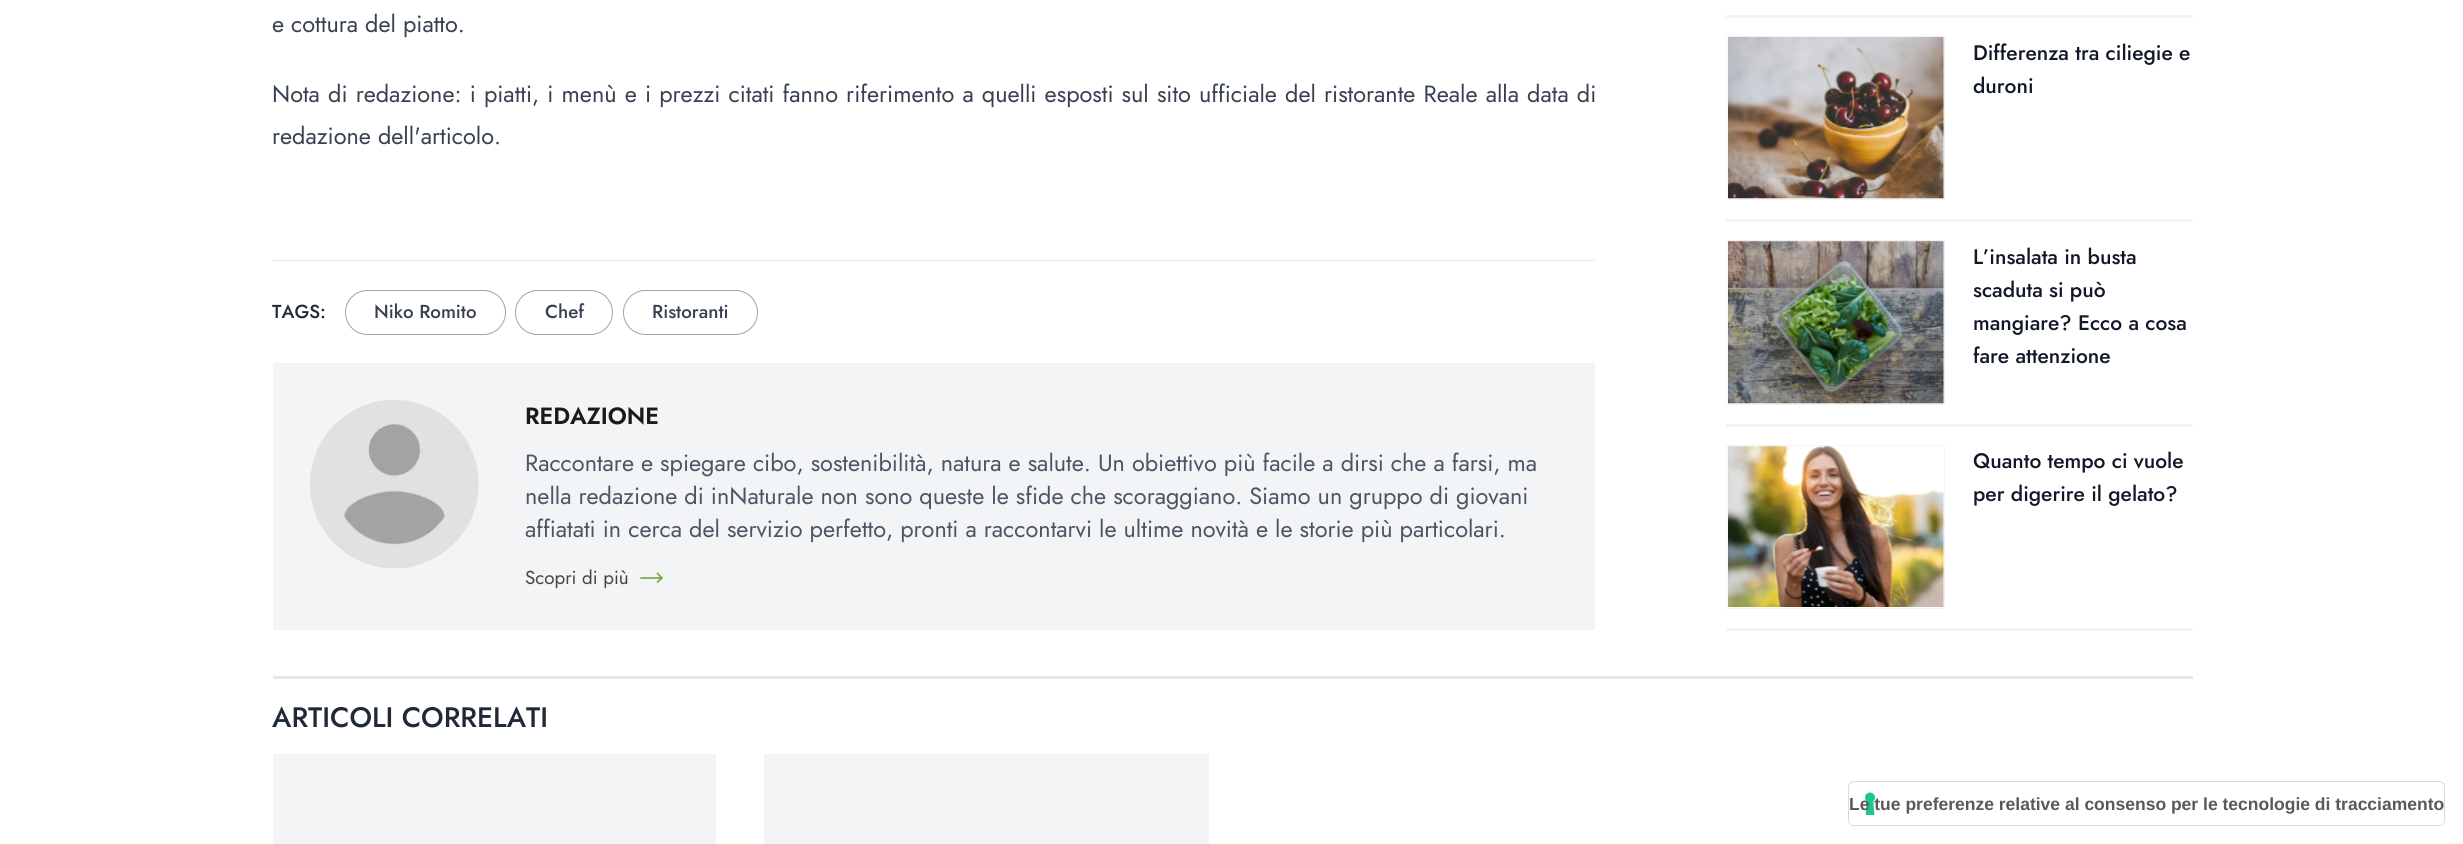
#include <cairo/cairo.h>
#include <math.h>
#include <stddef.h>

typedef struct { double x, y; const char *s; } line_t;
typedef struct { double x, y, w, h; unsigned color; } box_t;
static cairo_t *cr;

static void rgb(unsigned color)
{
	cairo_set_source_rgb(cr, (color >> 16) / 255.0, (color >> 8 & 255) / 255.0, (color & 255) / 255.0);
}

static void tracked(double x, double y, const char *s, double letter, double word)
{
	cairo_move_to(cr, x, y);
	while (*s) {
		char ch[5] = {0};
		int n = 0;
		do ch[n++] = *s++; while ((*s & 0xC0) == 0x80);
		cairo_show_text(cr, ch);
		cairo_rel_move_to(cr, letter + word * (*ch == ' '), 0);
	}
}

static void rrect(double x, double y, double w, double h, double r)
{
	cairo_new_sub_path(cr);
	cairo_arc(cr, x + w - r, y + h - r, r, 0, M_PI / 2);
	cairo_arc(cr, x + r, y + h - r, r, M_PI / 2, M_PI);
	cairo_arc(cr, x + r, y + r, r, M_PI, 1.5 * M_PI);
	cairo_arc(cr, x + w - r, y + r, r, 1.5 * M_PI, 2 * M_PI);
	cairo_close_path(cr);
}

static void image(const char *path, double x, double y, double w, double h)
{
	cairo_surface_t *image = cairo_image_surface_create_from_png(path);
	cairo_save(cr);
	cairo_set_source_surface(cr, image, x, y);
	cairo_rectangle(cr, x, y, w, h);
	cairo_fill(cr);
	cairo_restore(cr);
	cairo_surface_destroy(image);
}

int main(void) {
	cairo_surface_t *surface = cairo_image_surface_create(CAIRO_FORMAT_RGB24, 2463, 844);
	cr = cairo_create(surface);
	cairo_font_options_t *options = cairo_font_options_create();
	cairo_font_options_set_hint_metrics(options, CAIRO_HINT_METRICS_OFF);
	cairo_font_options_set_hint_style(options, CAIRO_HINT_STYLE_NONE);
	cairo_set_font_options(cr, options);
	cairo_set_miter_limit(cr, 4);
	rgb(0xffffff);
	cairo_paint(cr);
	rgb(0xe5e7eb);
	cairo_rectangle(cr, 273, 260, 1322, 1);
	cairo_fill(cr);
	rrect(345.5, 290.5, 160, 44, 22);
	rgb(0x9ca3af);
	cairo_set_line_width(cr, 1);
	cairo_stroke(cr);
	rrect(515.5, 290.5, 97, 44, 22);
	cairo_stroke(cr);
	rrect(623.5, 290.5, 134, 44, 22);
	cairo_stroke(cr);
	rgb(0xf3f4f6);
	cairo_rectangle(cr, 273, 363, 1322, 267);
	cairo_fill(cr);
	image("img/1.png", 310, 400, 169, 169);
	cairo_new_path(cr);
	cairo_move_to(cr, 657.5, 573.5);
	cairo_line_to(cr, 662, 578);
	cairo_move_to(cr, 662, 578);
	cairo_line_to(cr, 657.5, 582);
	cairo_move_to(cr, 662, 578);
	cairo_line_to(cr, 641, 578);
	rgb(0x7faa4c);
	cairo_set_line_width(cr, 1.8);
	cairo_set_line_cap(cr, CAIRO_LINE_CAP_ROUND);
	cairo_set_line_join(cr, CAIRO_LINE_JOIN_ROUND);
	cairo_stroke(cr);
	rgb(0xf3f4f6);
	cairo_rectangle(cr, 1726, 15, 467, 3);
	cairo_fill(cr);
	cairo_rectangle(cr, 1726.5, 36.5, 218, 163);
	cairo_set_line_width(cr, 1);
	cairo_set_line_cap(cr, CAIRO_LINE_CAP_BUTT);
	cairo_set_line_join(cr, CAIRO_LINE_JOIN_MITER);
	cairo_stroke(cr);
	image("img/2.png", 1728, 37, 217, 162);
	cairo_rectangle(cr, 1726, 219, 467, 3);
	cairo_fill(cr);
	cairo_rectangle(cr, 1726.5, 240.5, 218, 164);
	cairo_stroke(cr);
	image("img/3.png", 1728, 240, 217, 164);
	cairo_rectangle(cr, 1726, 424, 467, 3);
	cairo_fill(cr);
	cairo_rectangle(cr, 1726.5, 445.5, 218, 163);
	cairo_stroke(cr);
	image("img/4.png", 1728, 445, 217, 162);
	{
		static const box_t items[] = {
			{1726, 628, 467, 3, 0xf3f4f6},
			{273, 676, 1920, 3, 0xe5e7eb},
			{273, 754, 443, 90, 0xf3f4f6},
			{764, 754, 445, 90, 0xf3f4f6},
		};
		for (size_t i = 0; i < sizeof items / sizeof *items; i++) {
			rgb(items[i].color);
			cairo_rectangle(cr, items[i].x, items[i].y, items[i].w, items[i].h);
			cairo_fill(cr);
		}
	}
	rrect(1848.5, 781.5, 596, 44, 5.5);
	rgb(0xd9d9d9);
	cairo_stroke(cr);
	rgb(0xffffff);
	rrect(1849, 783, 595, 42, 5);
	cairo_fill(cr);
	image("img/5.png", 1865, 792, 10, 23);
	cairo_select_font_face(cr, "Jost", CAIRO_FONT_SLANT_NORMAL, CAIRO_FONT_WEIGHT_NORMAL);
	cairo_set_font_size(cr, 23.45);
	rgb(0x374151);
	cairo_move_to(cr, 272, 32);
	cairo_show_text(cr, "e cottura del piatto.");
	tracked(272, 102, "Nota di redazione: i piatti, i menù e i prezzi citati fanno riferimento a quelli esposti sul sito ufficiale del ristorante Reale alla data di", 0, 1.1);
	cairo_move_to(cr, 272, 144);
	cairo_show_text(cr, "redazione dell'articolo.");
	cairo_select_font_face(cr, "Jost Medium", CAIRO_FONT_SLANT_NORMAL, CAIRO_FONT_WEIGHT_NORMAL);
	cairo_set_font_size(cr, 18.75);
	rgb(0x1f2937);
	cairo_move_to(cr, 272, 318);
	cairo_show_text(cr, "TAGS:");
	rgb(0x374151);
	{
		static const line_t items[] = {
			{374, 318, "Niko Romito"},
			{545, 318, "Chef"},
			{652, 318, "Ristoranti"},
		};
		for (size_t i = 0; i < sizeof items / sizeof *items; i++) {
			cairo_move_to(cr, items[i].x, items[i].y);
			cairo_show_text(cr, items[i].s);
		}
	}
	cairo_select_font_face(cr, "Jost SemiBold", CAIRO_FONT_SLANT_NORMAL, CAIRO_FONT_WEIGHT_NORMAL);
	cairo_set_font_size(cr, 23.45);
	rgb(0x1a1a1a);
	cairo_move_to(cr, 525, 424);
	cairo_show_text(cr, "REDAZIONE");
	cairo_select_font_face(cr, "Jost", CAIRO_FONT_SLANT_NORMAL, CAIRO_FONT_WEIGHT_NORMAL);
	rgb(0x4b5563);
	{
		static const line_t items[] = {
			{525, 471, "Raccontare e spiegare cibo, sostenibilità, natura e salute. Un obiettivo più facile a dirsi che a farsi, ma"},
			{525, 504, "nella redazione di inNaturale non sono queste le sfide che scoraggiano. Siamo un gruppo di giovani"},
			{525, 537, "affiatati in cerca del servizio perfetto, pronti a raccontarvi le ultime novità e le storie più particolari."},
		};
		for (size_t i = 0; i < sizeof items / sizeof *items; i++) {
			cairo_move_to(cr, items[i].x, items[i].y);
			cairo_show_text(cr, items[i].s);
		}
	}
	cairo_set_font_size(cr, 18.75);
	rgb(0x444444);
	cairo_move_to(cr, 525, 584);
	cairo_show_text(cr, "Scopri di più");
	cairo_select_font_face(cr, "Jost Medium", CAIRO_FONT_SLANT_NORMAL, CAIRO_FONT_WEIGHT_NORMAL);
	cairo_set_font_size(cr, 21);
	rgb(0x111827);
	{
		static const line_t items[] = {
			{1973, 60, "Differenza tra ciliegie e"},
			{1973, 93, "duroni"},
			{1973, 264, "L’insalata in busta"},
			{1973, 297, "scaduta si può"},
			{1973, 330, "mangiare? Ecco a cosa"},
			{1973, 363, "fare attenzione"},
			{1973, 468, "Quanto tempo ci vuole"},
			{1973, 501, "per digerire il gelato?"},
		};
		for (size_t i = 0; i < sizeof items / sizeof *items; i++) {
			cairo_move_to(cr, items[i].x, items[i].y);
			cairo_show_text(cr, items[i].s);
		}
	}
	cairo_set_font_size(cr, 28.1);
	rgb(0x1f2937);
	cairo_move_to(cr, 272, 727);
	cairo_show_text(cr, "ARTICOLI CORRELATI");
	cairo_select_font_face(cr, "Liberation Sans", CAIRO_FONT_SLANT_NORMAL, CAIRO_FONT_WEIGHT_BOLD);
	cairo_set_font_size(cr, 17.5);
	rgb(0x595959);
	cairo_move_to(cr, 1849, 810);
	cairo_show_text(cr, "Le tue preferenze relative al consenso per le tecnologie di tracciamento");
	cairo_surface_write_to_png(surface, "page.png");
	cairo_font_options_destroy(options);
	cairo_destroy(cr);
	cairo_surface_destroy(surface);
	return 0;
}
